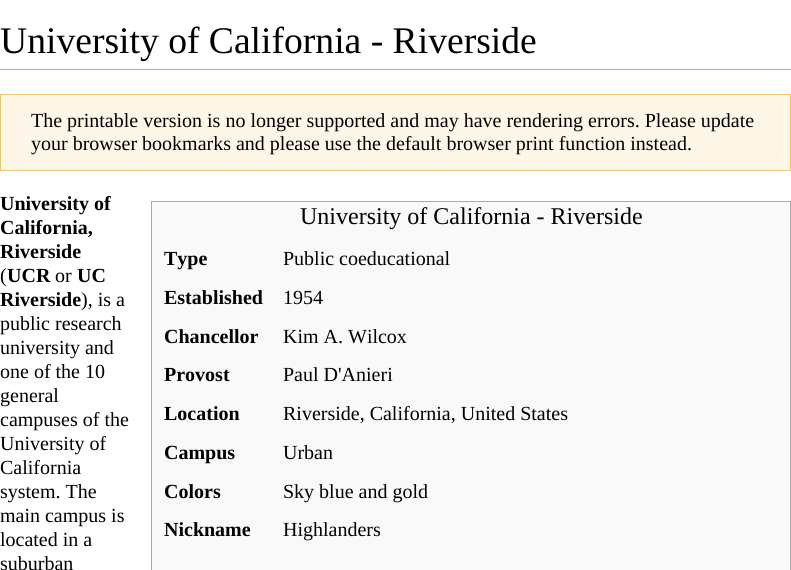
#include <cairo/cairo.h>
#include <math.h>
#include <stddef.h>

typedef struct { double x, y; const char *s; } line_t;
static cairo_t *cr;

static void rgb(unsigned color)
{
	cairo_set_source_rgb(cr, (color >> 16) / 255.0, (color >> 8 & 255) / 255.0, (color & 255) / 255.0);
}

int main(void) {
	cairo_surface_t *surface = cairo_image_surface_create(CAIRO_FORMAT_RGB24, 791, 570);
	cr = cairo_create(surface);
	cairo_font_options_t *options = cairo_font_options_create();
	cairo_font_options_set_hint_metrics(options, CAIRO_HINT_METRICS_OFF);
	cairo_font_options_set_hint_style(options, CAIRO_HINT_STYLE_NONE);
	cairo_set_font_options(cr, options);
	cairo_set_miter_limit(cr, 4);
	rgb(0xffffff);
	cairo_paint(cr);
	rgb(0xa2a9b1);
	cairo_rectangle(cr, 0, 69, 791, 1);
	cairo_fill(cr);
	rgb(0xfef6e7);
	cairo_rectangle(cr, 0.5, 94.5, 790, 76);
	cairo_fill_preserve(cr);
	rgb(0xffcc33);
	cairo_set_line_width(cr, 1);
	cairo_stroke(cr);
	rgb(0xf9f9f9);
	cairo_rectangle(cr, 151.5, 201.5, 639, 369);
	cairo_fill_preserve(cr);
	rgb(0xaaaaaa);
	cairo_stroke(cr);
	cairo_select_font_face(cr, "Liberation Serif", CAIRO_FONT_SLANT_NORMAL, CAIRO_FONT_WEIGHT_NORMAL);
	cairo_set_font_size(cr, 37.6);
	rgb(0x000000);
	cairo_move_to(cr, 0, 53);
	cairo_show_text(cr, "University of California - Riverside");
	cairo_set_font_size(cr, 20);
	cairo_move_to(cr, 31, 127);
	cairo_show_text(cr, "The printable version is no longer supported and may have rendering errors. Please update");
	cairo_move_to(cr, 31, 150);
	cairo_show_text(cr, "your browser bookmarks and please use the default browser print function instead.");
	cairo_select_font_face(cr, "Liberation Serif", CAIRO_FONT_SLANT_NORMAL, CAIRO_FONT_WEIGHT_BOLD);
	{
		static const line_t items[] = {
			{0, 210, "University of"},
			{0, 234, "California,"},
			{0, 258, "Riverside"},
		};
		for (size_t i = 0; i < sizeof items / sizeof *items; i++) {
			cairo_move_to(cr, items[i].x, items[i].y);
			cairo_show_text(cr, items[i].s);
		}
	}
	cairo_select_font_face(cr, "Liberation Serif", CAIRO_FONT_SLANT_NORMAL, CAIRO_FONT_WEIGHT_NORMAL);
	cairo_move_to(cr, 0, 282);
	cairo_show_text(cr, "(");
	cairo_select_font_face(cr, "Liberation Serif", CAIRO_FONT_SLANT_NORMAL, CAIRO_FONT_WEIGHT_BOLD);
	cairo_move_to(cr, 7, 282);
	cairo_show_text(cr, "UCR");
	cairo_select_font_face(cr, "Liberation Serif", CAIRO_FONT_SLANT_NORMAL, CAIRO_FONT_WEIGHT_NORMAL);
	cairo_move_to(cr, 55, 282);
	cairo_show_text(cr, "or");
	cairo_select_font_face(cr, "Liberation Serif", CAIRO_FONT_SLANT_NORMAL, CAIRO_FONT_WEIGHT_BOLD);
	cairo_move_to(cr, 77, 282);
	cairo_show_text(cr, "UC");
	cairo_move_to(cr, 0, 306);
	cairo_show_text(cr, "Riverside");
	cairo_select_font_face(cr, "Liberation Serif", CAIRO_FONT_SLANT_NORMAL, CAIRO_FONT_WEIGHT_NORMAL);
	{
		static const line_t items[] = {
			{81, 306, "), is a"},
			{0, 330, "public research"},
			{0, 354, "university and"},
			{0, 378, "one of the 10"},
			{0, 402, "general"},
			{0, 426, "campuses of the"},
			{0, 450, "University of"},
			{0, 474, "California"},
			{0, 498, "system. The"},
			{0, 522, "main campus is"},
			{0, 546, "located in a"},
			{0, 570, "suburban"},
		};
		for (size_t i = 0; i < sizeof items / sizeof *items; i++) {
			cairo_move_to(cr, items[i].x, items[i].y);
			cairo_show_text(cr, items[i].s);
		}
	}
	cairo_set_font_size(cr, 24);
	cairo_move_to(cr, 300, 224);
	cairo_show_text(cr, "University of California - Riverside");
	cairo_select_font_face(cr, "Liberation Serif", CAIRO_FONT_SLANT_NORMAL, CAIRO_FONT_WEIGHT_BOLD);
	cairo_set_font_size(cr, 20);
	cairo_move_to(cr, 164, 265);
	cairo_show_text(cr, "Type");
	cairo_select_font_face(cr, "Liberation Serif", CAIRO_FONT_SLANT_NORMAL, CAIRO_FONT_WEIGHT_NORMAL);
	cairo_move_to(cr, 283, 265);
	cairo_show_text(cr, "Public coeducational");
	cairo_select_font_face(cr, "Liberation Serif", CAIRO_FONT_SLANT_NORMAL, CAIRO_FONT_WEIGHT_BOLD);
	cairo_move_to(cr, 164, 304);
	cairo_show_text(cr, "Established");
	cairo_select_font_face(cr, "Liberation Serif", CAIRO_FONT_SLANT_NORMAL, CAIRO_FONT_WEIGHT_NORMAL);
	cairo_move_to(cr, 283, 304);
	cairo_show_text(cr, "1954");
	cairo_select_font_face(cr, "Liberation Serif", CAIRO_FONT_SLANT_NORMAL, CAIRO_FONT_WEIGHT_BOLD);
	cairo_move_to(cr, 164, 343);
	cairo_show_text(cr, "Chancellor");
	cairo_select_font_face(cr, "Liberation Serif", CAIRO_FONT_SLANT_NORMAL, CAIRO_FONT_WEIGHT_NORMAL);
	cairo_move_to(cr, 283, 343);
	cairo_show_text(cr, "Kim A. Wilcox");
	cairo_select_font_face(cr, "Liberation Serif", CAIRO_FONT_SLANT_NORMAL, CAIRO_FONT_WEIGHT_BOLD);
	cairo_move_to(cr, 164, 381);
	cairo_show_text(cr, "Provost");
	cairo_select_font_face(cr, "Liberation Serif", CAIRO_FONT_SLANT_NORMAL, CAIRO_FONT_WEIGHT_NORMAL);
	cairo_move_to(cr, 283, 381);
	cairo_show_text(cr, "Paul D'Anieri");
	cairo_select_font_face(cr, "Liberation Serif", CAIRO_FONT_SLANT_NORMAL, CAIRO_FONT_WEIGHT_BOLD);
	cairo_move_to(cr, 164, 420);
	cairo_show_text(cr, "Location");
	cairo_select_font_face(cr, "Liberation Serif", CAIRO_FONT_SLANT_NORMAL, CAIRO_FONT_WEIGHT_NORMAL);
	cairo_move_to(cr, 283, 420);
	cairo_show_text(cr, "Riverside, California, United States");
	cairo_select_font_face(cr, "Liberation Serif", CAIRO_FONT_SLANT_NORMAL, CAIRO_FONT_WEIGHT_BOLD);
	cairo_move_to(cr, 164, 459);
	cairo_show_text(cr, "Campus");
	cairo_select_font_face(cr, "Liberation Serif", CAIRO_FONT_SLANT_NORMAL, CAIRO_FONT_WEIGHT_NORMAL);
	cairo_move_to(cr, 283, 459);
	cairo_show_text(cr, "Urban");
	cairo_select_font_face(cr, "Liberation Serif", CAIRO_FONT_SLANT_NORMAL, CAIRO_FONT_WEIGHT_BOLD);
	cairo_move_to(cr, 164, 498);
	cairo_show_text(cr, "Colors");
	cairo_select_font_face(cr, "Liberation Serif", CAIRO_FONT_SLANT_NORMAL, CAIRO_FONT_WEIGHT_NORMAL);
	cairo_move_to(cr, 283, 498);
	cairo_show_text(cr, "Sky blue and gold");
	cairo_select_font_face(cr, "Liberation Serif", CAIRO_FONT_SLANT_NORMAL, CAIRO_FONT_WEIGHT_BOLD);
	cairo_move_to(cr, 164, 536);
	cairo_show_text(cr, "Nickname");
	cairo_select_font_face(cr, "Liberation Serif", CAIRO_FONT_SLANT_NORMAL, CAIRO_FONT_WEIGHT_NORMAL);
	cairo_move_to(cr, 283, 536);
	cairo_show_text(cr, "Highlanders");
	cairo_surface_write_to_png(surface, "page.png");
	cairo_font_options_destroy(options);
	cairo_destroy(cr);
	cairo_surface_destroy(surface);
	return 0;
}
